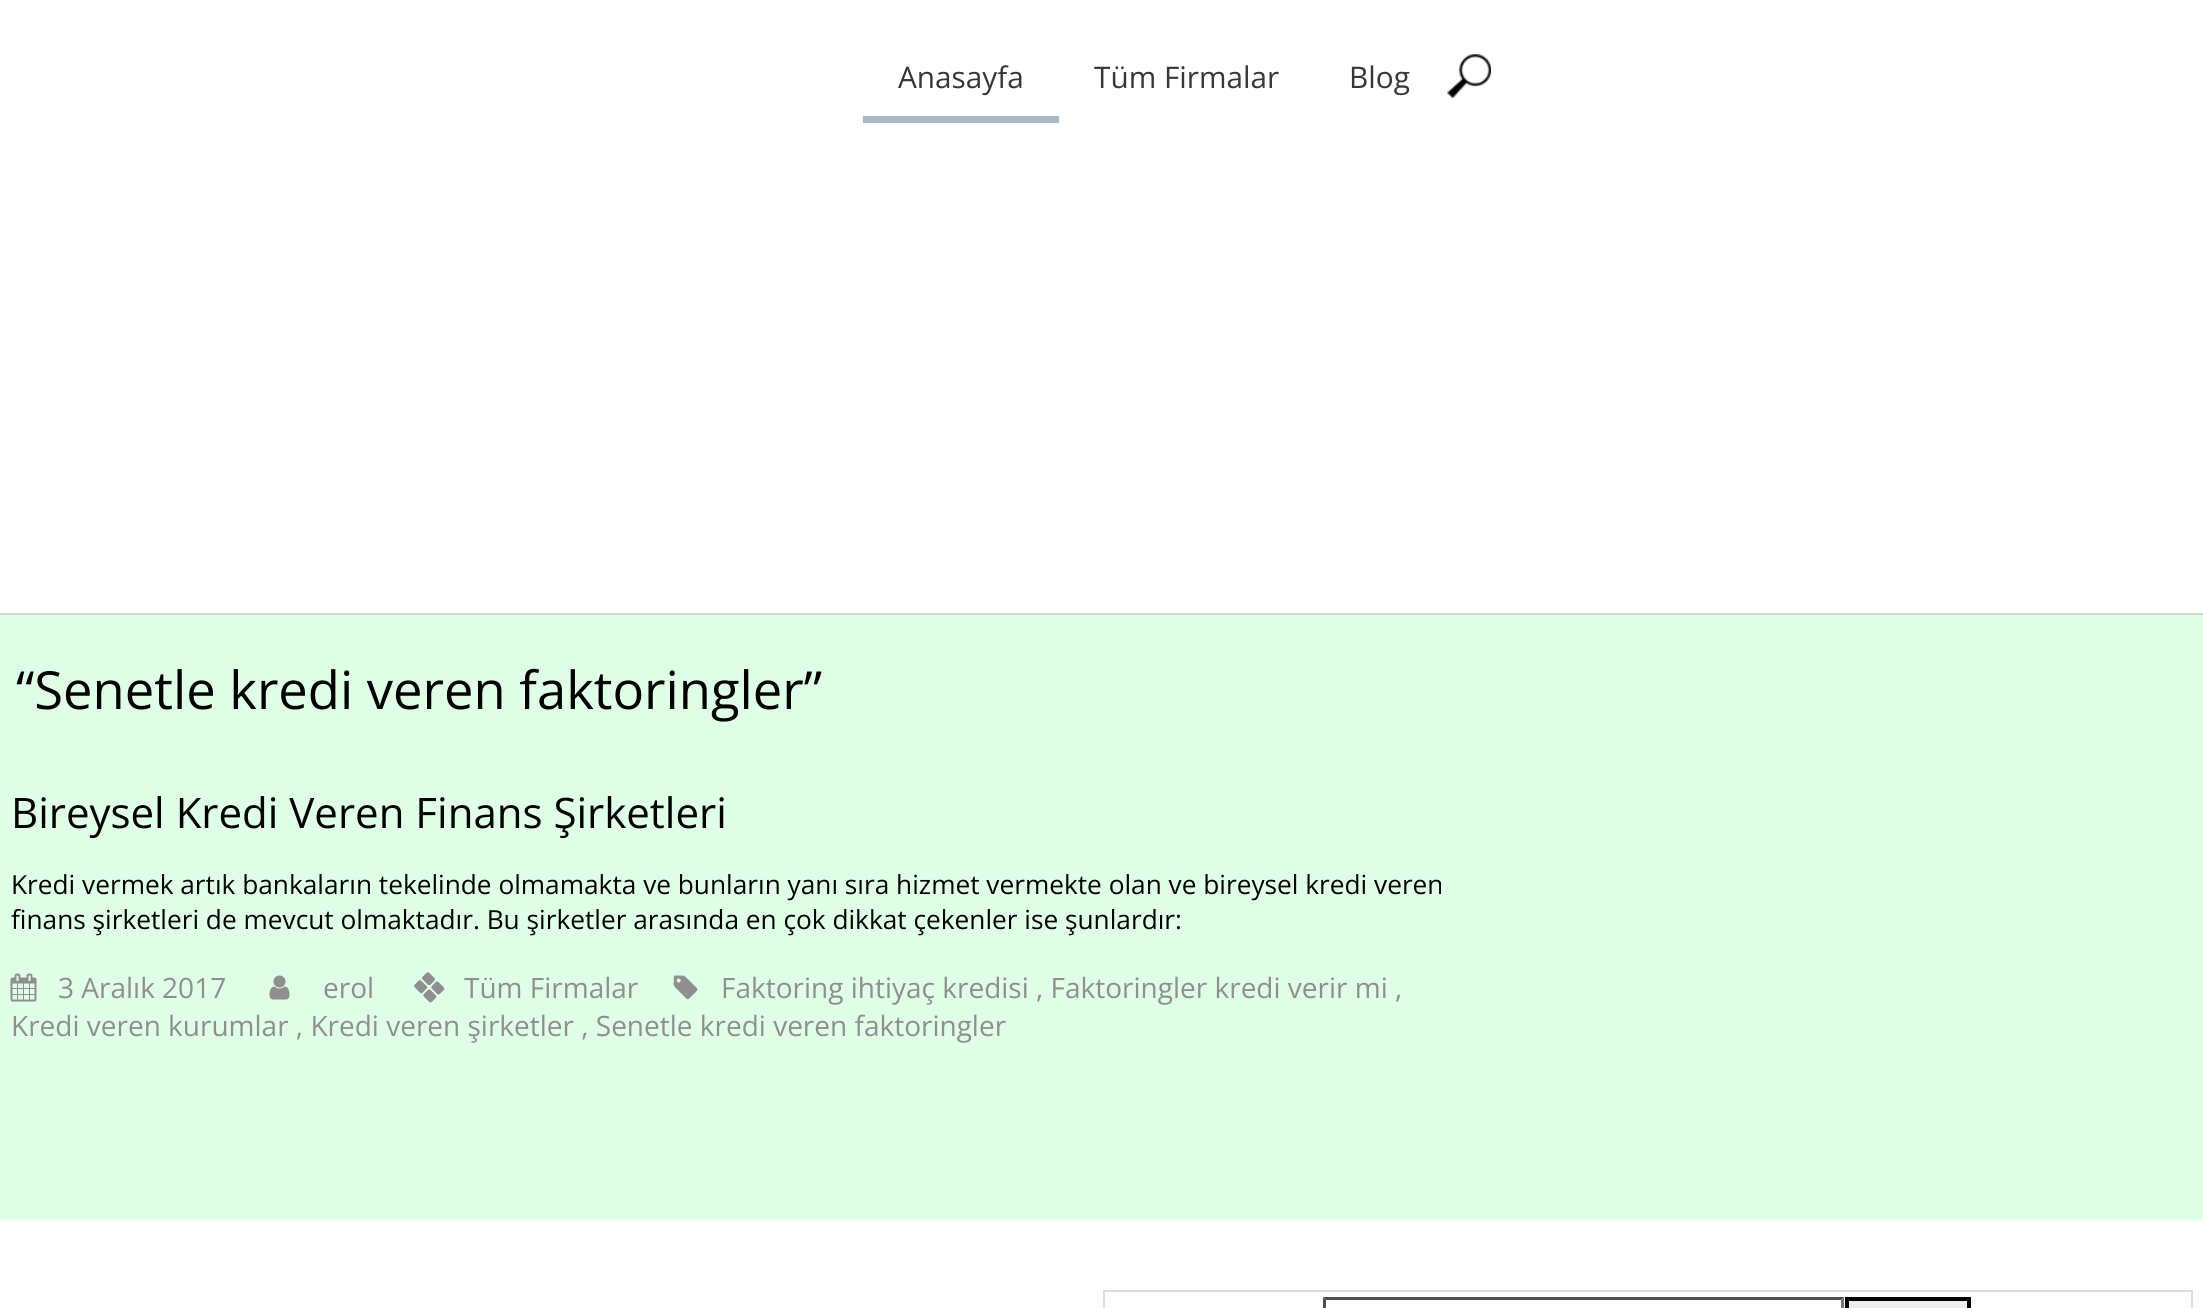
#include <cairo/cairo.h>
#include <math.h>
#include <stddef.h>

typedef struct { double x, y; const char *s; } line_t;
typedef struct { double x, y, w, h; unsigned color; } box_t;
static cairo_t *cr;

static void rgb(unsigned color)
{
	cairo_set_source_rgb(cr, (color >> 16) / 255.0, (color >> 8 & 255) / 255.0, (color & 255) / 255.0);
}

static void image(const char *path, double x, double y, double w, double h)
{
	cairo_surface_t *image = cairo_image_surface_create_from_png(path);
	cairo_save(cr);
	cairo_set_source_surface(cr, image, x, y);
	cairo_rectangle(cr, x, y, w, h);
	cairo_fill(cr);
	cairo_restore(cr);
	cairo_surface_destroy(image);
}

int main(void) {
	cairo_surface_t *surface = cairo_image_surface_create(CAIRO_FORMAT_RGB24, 2203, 1308);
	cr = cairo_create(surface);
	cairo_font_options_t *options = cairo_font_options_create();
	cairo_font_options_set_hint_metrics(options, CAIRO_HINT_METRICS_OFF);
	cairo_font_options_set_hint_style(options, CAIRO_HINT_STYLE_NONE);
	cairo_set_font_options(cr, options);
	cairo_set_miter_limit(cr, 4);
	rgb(0xe0ffe7);
	cairo_paint(cr);
	{
		static const box_t items[] = {
			{0, 614, 2203, 1, 0xcbd5cd},
			{0, 0, 2203, 613, 0xffffff},
			{0, 613, 2203, 1, 0xd5d5d5},
			{863, 116, 196, 7, 0xa8b8c5},
		};
		for (size_t i = 0; i < sizeof items / sizeof *items; i++) {
			rgb(items[i].color);
			cairo_rectangle(cr, items[i].x, items[i].y, items[i].w, items[i].h);
			cairo_fill(cr);
		}
	}
	image("img/1.png", 1447, 54, 44, 44);
	image("img/2.png", 10, 973, 27, 29);
	image("img/3.png", 673, 975, 25, 25);
	image("img/4.png", 269, 975, 21, 25);
	image("img/5.png", 414, 972, 31, 31);
	rgb(0xffffff);
	cairo_rectangle(cr, 0, 1220, 2203, 88);
	cairo_fill(cr);
	cairo_rectangle(cr, 1104, 1291, 1088, 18);
	rgb(0xdddddd);
	cairo_stroke(cr);
	rgb(0x4f4f4f);
	cairo_new_path(cr);
	cairo_move_to(cr, 1323, 1297);
	cairo_line_to(cr, 1844, 1297);
	cairo_line_to(cr, 1841, 1300);
	cairo_line_to(cr, 1326, 1300);
	cairo_close_path(cr);
	cairo_fill(cr);
	rgb(0x767676);
	cairo_new_path(cr);
	cairo_move_to(cr, 1844, 1297);
	cairo_line_to(cr, 1844, 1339);
	cairo_line_to(cr, 1841, 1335);
	cairo_line_to(cr, 1841, 1300);
	cairo_close_path(cr);
	cairo_fill(cr);
	rgb(0x4f4f4f);
	cairo_new_path(cr);
	cairo_move_to(cr, 1323, 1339);
	cairo_line_to(cr, 1323, 1297);
	cairo_line_to(cr, 1326, 1300);
	cairo_line_to(cr, 1326, 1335);
	cairo_close_path(cr);
	cairo_fill(cr);
	rgb(0xefefef);
	cairo_rectangle(cr, 1847, 1299, 122, 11);
	cairo_fill_preserve(cr);
	rgb(0x000000);
	cairo_set_line_width(cr, 4);
	cairo_stroke(cr);
	cairo_select_font_face(cr, "Open Sans", CAIRO_FONT_SLANT_NORMAL, CAIRO_FONT_WEIGHT_NORMAL);
	cairo_set_font_size(cr, 29.75);
	rgb(0x373737);
	{
		static const line_t items[] = {
			{898, 88, "Anasayfa"},
			{1094, 88, "Tüm Firmalar"},
			{1349, 88, "Blog"},
		};
		for (size_t i = 0; i < sizeof items / sizeof *items; i++) {
			cairo_move_to(cr, items[i].x, items[i].y);
			cairo_show_text(cr, items[i].s);
		}
	}
	cairo_set_font_size(cr, 52.5);
	rgb(0x000000);
	cairo_move_to(cr, 16, 709);
	cairo_show_text(cr, "“Senetle kredi veren faktoringler”");
	cairo_set_font_size(cr, 42);
	cairo_move_to(cr, 11, 828);
	cairo_show_text(cr, "Bireysel Kredi Veren Finans Şirketleri");
	cairo_set_font_size(cr, 26.25);
	cairo_move_to(cr, 11, 894);
	cairo_show_text(cr, "Kredi vermek artık bankaların tekelinde olmamakta ve bunların yanı sıra hizmet vermekte olan ve bireysel kredi veren");
	cairo_move_to(cr, 11, 929);
	cairo_show_text(cr, "finans şirketleri de mevcut olmaktadır. Bu şirketler arasında en çok dikkat çekenler ise şunlardır:");
	cairo_set_font_size(cr, 28);
	rgb(0x8f8f8f);
	{
		static const line_t items[] = {
			{721, 998, "Faktoring ihtiyaç kredisi , Faktoringler kredi verir mi ,"},
			{11, 1036, "Kredi veren kurumlar , Kredi veren şirketler , Senetle kredi veren faktoringler"},
			{58, 998, "3 Aralık 2017"},
			{323, 998, "erol"},
			{464, 998, "Tüm Firmalar"},
		};
		for (size_t i = 0; i < sizeof items / sizeof *items; i++) {
			cairo_move_to(cr, items[i].x, items[i].y);
			cairo_show_text(cr, items[i].s);
		}
	}
	cairo_surface_write_to_png(surface, "page.png");
	cairo_font_options_destroy(options);
	cairo_destroy(cr);
	cairo_surface_destroy(surface);
	return 0;
}
